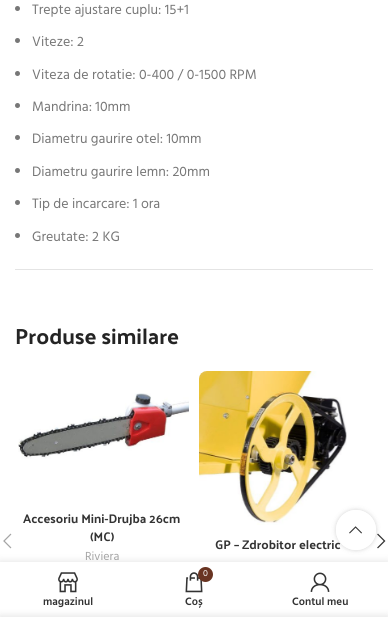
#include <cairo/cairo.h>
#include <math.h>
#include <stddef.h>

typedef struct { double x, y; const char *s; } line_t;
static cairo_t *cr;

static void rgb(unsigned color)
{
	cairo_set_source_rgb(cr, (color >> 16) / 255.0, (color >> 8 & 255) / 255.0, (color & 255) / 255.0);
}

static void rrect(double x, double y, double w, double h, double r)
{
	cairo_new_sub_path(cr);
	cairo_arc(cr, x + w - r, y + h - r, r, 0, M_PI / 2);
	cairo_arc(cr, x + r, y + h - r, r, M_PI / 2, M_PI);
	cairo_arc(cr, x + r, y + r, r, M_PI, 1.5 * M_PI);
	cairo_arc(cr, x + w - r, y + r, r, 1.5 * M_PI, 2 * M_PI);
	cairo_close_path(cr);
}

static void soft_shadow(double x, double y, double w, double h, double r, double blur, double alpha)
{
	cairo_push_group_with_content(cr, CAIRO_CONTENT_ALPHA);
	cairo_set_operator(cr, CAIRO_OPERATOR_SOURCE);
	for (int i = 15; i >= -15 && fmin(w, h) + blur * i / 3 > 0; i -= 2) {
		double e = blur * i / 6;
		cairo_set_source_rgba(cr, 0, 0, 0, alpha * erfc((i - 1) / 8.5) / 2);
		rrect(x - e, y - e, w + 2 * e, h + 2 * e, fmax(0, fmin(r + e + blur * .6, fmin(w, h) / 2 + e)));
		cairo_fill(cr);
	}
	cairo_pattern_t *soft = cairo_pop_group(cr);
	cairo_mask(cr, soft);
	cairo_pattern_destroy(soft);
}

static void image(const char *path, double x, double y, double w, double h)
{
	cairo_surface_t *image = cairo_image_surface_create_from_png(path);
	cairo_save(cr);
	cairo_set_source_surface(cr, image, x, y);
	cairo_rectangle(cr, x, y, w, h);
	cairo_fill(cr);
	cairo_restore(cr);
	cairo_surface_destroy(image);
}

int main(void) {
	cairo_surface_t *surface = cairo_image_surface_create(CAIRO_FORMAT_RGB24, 388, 617);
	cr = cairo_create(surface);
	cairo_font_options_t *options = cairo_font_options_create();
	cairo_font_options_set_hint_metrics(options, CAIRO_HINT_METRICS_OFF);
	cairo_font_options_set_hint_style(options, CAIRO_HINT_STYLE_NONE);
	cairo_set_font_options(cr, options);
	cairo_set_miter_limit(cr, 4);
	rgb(0xffffff);
	cairo_paint(cr);
	rgb(0xe4e4e4);
	cairo_rectangle(cr, 15, 269, 358, 1);
	cairo_fill(cr);
	rgb(0x777777);
	cairo_arc(cr, 17.5, 8.5, 2.5, 0, 2 * M_PI);
	cairo_fill(cr);
	cairo_arc(cr, 17.5, 40.5, 2.5, 0, 2 * M_PI);
	cairo_fill(cr);
	cairo_arc(cr, 17.5, 73.5, 2.5, 0, 2 * M_PI);
	cairo_fill(cr);
	cairo_arc(cr, 17.5, 105.5, 2.5, 0, 2 * M_PI);
	cairo_fill(cr);
	cairo_arc(cr, 17.5, 137.5, 2.5, 0, 2 * M_PI);
	cairo_fill(cr);
	cairo_arc(cr, 17.5, 170.5, 2.5, 0, 2 * M_PI);
	cairo_fill(cr);
	cairo_arc(cr, 17.5, 202.5, 2.5, 0, 2 * M_PI);
	cairo_fill(cr);
	cairo_arc(cr, 17.5, 235.5, 2.5, 0, 2 * M_PI);
	cairo_fill(cr);
	image("img/1.png", 18, 393, 171, 66);
	image("img/2.png", 199, 371, 148, 154);
	image("img/3.png", 3, 533, 9, 16);
	image("img/4.png", 377, 533, 9, 16);
	cairo_save(cr);
	cairo_set_fill_rule(cr, CAIRO_FILL_RULE_EVEN_ODD);
	cairo_new_path(cr);
	cairo_move_to(cr, 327, 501);
	cairo_line_to(cr, 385, 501);
	cairo_line_to(cr, 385, 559);
	cairo_line_to(cr, 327, 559);
	cairo_close_path(cr);
	cairo_move_to(cr, 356, 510);
	cairo_curve_to(cr, 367, 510, 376, 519, 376, 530);
	cairo_curve_to(cr, 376, 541, 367, 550, 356, 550);
	cairo_curve_to(cr, 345, 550, 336, 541, 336, 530);
	cairo_curve_to(cr, 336, 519, 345, 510, 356, 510);
	cairo_close_path(cr);
	cairo_clip(cr);
	rgb(0x000000);
	soft_shadow(336, 510, 40, 40, 20, 2.5, 0.17);
	cairo_restore(cr);
	cairo_select_font_face(cr, "Hind", CAIRO_FONT_SLANT_NORMAL, CAIRO_FONT_WEIGHT_NORMAL);
	cairo_set_font_size(cr, 14);
	{
		static const line_t items[] = {
			{32, 14, "Trepte ajustare cuplu: 15+1"},
			{32, 46, "Viteze: 2"},
			{32, 79, "Viteza de rotatie: 0-400 / 0-1500 RPM"},
			{32, 111, "Mandrina: 10mm"},
			{32, 143, "Diametru gaurire otel: 10mm"},
			{32, 176, "Diametru gaurire lemn: 20mm"},
			{32, 208, "Tip de incarcare: 1 ora"},
			{32, 241, "Greutate: 2 KG"},
		};
		for (size_t i = 0; i < sizeof items / sizeof *items; i++) {
			cairo_move_to(cr, items[i].x, items[i].y);
			cairo_show_text(cr, items[i].s);
		}
	}
	cairo_select_font_face(cr, "Palanquin Dark", CAIRO_FONT_SLANT_NORMAL, CAIRO_FONT_WEIGHT_NORMAL);
	cairo_set_font_size(cr, 22);
	rgb(0x242424);
	cairo_move_to(cr, 15, 344);
	cairo_show_text(cr, "Produse similare");
	cairo_set_font_size(cr, 12.6);
	rgb(0x333333);
	cairo_move_to(cr, 23, 523);
	cairo_show_text(cr, "Accesoriu Mini-Drujba 26cm");
	cairo_move_to(cr, 90, 541);
	cairo_show_text(cr, "(MC)");
	cairo_select_font_face(cr, "Hind", CAIRO_FONT_SLANT_NORMAL, CAIRO_FONT_WEIGHT_NORMAL);
	cairo_set_font_size(cr, 12);
	rgb(0xa5a5a5);
	cairo_move_to(cr, 85, 560);
	cairo_show_text(cr, "Riviera");
	cairo_select_font_face(cr, "Palanquin Dark", CAIRO_FONT_SLANT_NORMAL, CAIRO_FONT_WEIGHT_NORMAL);
	cairo_set_font_size(cr, 12.6);
	rgb(0x333333);
	cairo_move_to(cr, 215, 549);
	cairo_show_text(cr, "GP – Zdrobitor electric");
	cairo_set_source_rgba(cr, 1, 1, 1, 0.9);
	cairo_new_path(cr);
	cairo_arc(cr, 356, 530, 20, 0, 2 * M_PI);
	cairo_fill(cr);
	image("img/5.png", 349, 526, 13, 8);
	rgb(0x000000);
	soft_shadow(0, 562, 388, 55, 0, 4.5, 0.12);
	rgb(0xffffff);
	cairo_rectangle(cr, 0, 562, 388, 55);
	cairo_fill(cr);
	image("img/6.png", 58, 572, 20, 21);
	cairo_select_font_face(cr, "Hind SemiBold", CAIRO_FONT_SLANT_NORMAL, CAIRO_FONT_WEIGHT_NORMAL);
	cairo_set_font_size(cr, 11);
	rgb(0x333333);
	cairo_move_to(cr, 43, 605);
	cairo_show_text(cr, "magazinul");
	image("img/7.png", 185, 572, 18, 21);
	rgb(0x693422);
	cairo_arc(cr, 205.5, 574.5, 7.5, 0, 2 * M_PI);
	cairo_fill(cr);
	cairo_select_font_face(cr, "Hind", CAIRO_FONT_SLANT_NORMAL, CAIRO_FONT_WEIGHT_NORMAL);
	cairo_set_font_size(cr, 9);
	rgb(0xffffff);
	cairo_move_to(cr, 203, 576);
	cairo_show_text(cr, "0");
	cairo_select_font_face(cr, "Hind SemiBold", CAIRO_FONT_SLANT_NORMAL, CAIRO_FONT_WEIGHT_NORMAL);
	cairo_set_font_size(cr, 11);
	rgb(0x333333);
	cairo_move_to(cr, 185, 605);
	cairo_show_text(cr, "Coș");
	image("img/8.png", 310, 572, 20, 20);
	cairo_move_to(cr, 292, 605);
	cairo_show_text(cr, "Contul meu");
	rgb(0x000000);
	soft_shadow(0, 617, 388, 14, 0, 4.5, 0.14);
	cairo_surface_write_to_png(surface, "page.png");
	cairo_font_options_destroy(options);
	cairo_destroy(cr);
	cairo_surface_destroy(surface);
	return 0;
}
